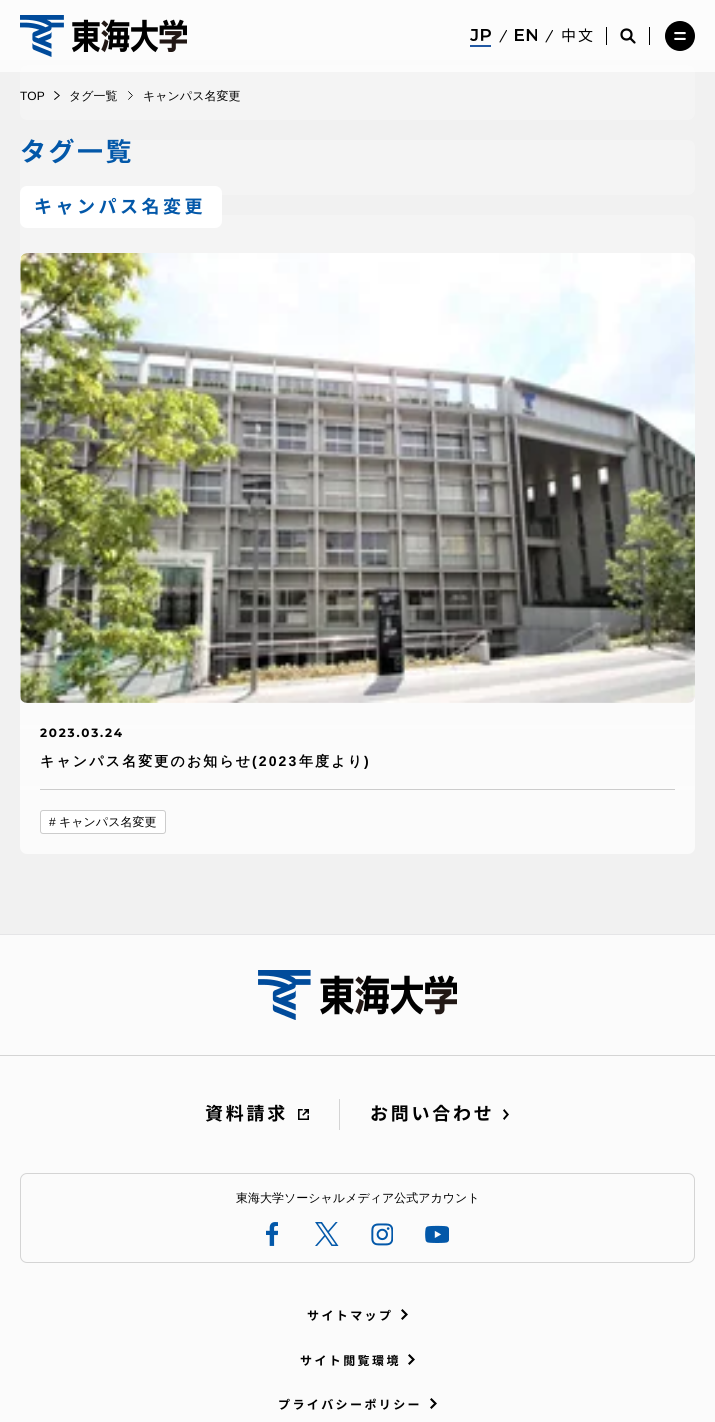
#include <cairo/cairo.h>
#include <math.h>
#include <stddef.h>

typedef struct { double x, y; const char *s; } line_t;
typedef struct { double x, y, w, h; unsigned color; } box_t;
static cairo_t *cr;

static void rgb(unsigned color)
{
	cairo_set_source_rgb(cr, (color >> 16) / 255.0, (color >> 8 & 255) / 255.0, (color & 255) / 255.0);
}

static void tracked(double x, double y, const char *s, double letter, double word)
{
	cairo_move_to(cr, x, y);
	while (*s) {
		char ch[5] = {0};
		int n = 0;
		do ch[n++] = *s++; while ((*s & 0xC0) == 0x80);
		cairo_show_text(cr, ch);
		cairo_rel_move_to(cr, letter + word * (*ch == ' '), 0);
	}
}

static void rrect(double x, double y, double w, double h, double r)
{
	cairo_new_sub_path(cr);
	cairo_arc(cr, x + w - r, y + h - r, r, 0, M_PI / 2);
	cairo_arc(cr, x + r, y + h - r, r, M_PI / 2, M_PI);
	cairo_arc(cr, x + r, y + r, r, M_PI, 1.5 * M_PI);
	cairo_arc(cr, x + w - r, y + r, r, 1.5 * M_PI, 2 * M_PI);
	cairo_close_path(cr);
}

static void image(const char *path, double x, double y, double w, double h)
{
	cairo_surface_t *image = cairo_image_surface_create_from_png(path);
	cairo_save(cr);
	cairo_set_source_surface(cr, image, x, y);
	cairo_rectangle(cr, x, y, w, h);
	cairo_fill(cr);
	cairo_restore(cr);
	cairo_surface_destroy(image);
}

int main(void) {
	cairo_surface_t *surface = cairo_image_surface_create(CAIRO_FORMAT_RGB24, 715, 1422);
	cr = cairo_create(surface);
	cairo_font_options_t *options = cairo_font_options_create();
	cairo_font_options_set_hint_metrics(options, CAIRO_HINT_METRICS_OFF);
	cairo_font_options_set_hint_style(options, CAIRO_HINT_STYLE_NONE);
	cairo_set_font_options(cr, options);
	cairo_set_miter_limit(cr, 4);
	rgb(0xf1f1f1);
	cairo_paint(cr);
	rgb(0xf4f4f4);
	cairo_rectangle(cr, 0, 0, 715, 60);
	cairo_fill(cr);
	rrect(20, 65, 675, 55, 7);
	cairo_fill(cr);
	rrect(20, 140, 675, 55, 7);
	cairo_fill(cr);
	rrect(20, 215, 675, 56, 7);
	cairo_fill(cr);
	cairo_rectangle(cr, 20, 358, 1, 4);
	cairo_fill(cr);
	cairo_rectangle(cr, 20, 419, 1, 4);
	cairo_fill(cr);
	cairo_rectangle(cr, 20, 480, 1, 4);
	cairo_fill(cr);
	cairo_rectangle(cr, 20, 541, 1, 4);
	cairo_fill(cr);
	cairo_rectangle(cr, 20, 603, 1, 4);
	cairo_fill(cr);
	cairo_rectangle(cr, 20, 664, 1, 4);
	cairo_fill(cr);
	cairo_rectangle(cr, 20, 725, 675, 4);
	cairo_fill(cr);
	cairo_rectangle(cr, 20, 786, 675, 4);
	cairo_fill(cr);
	cairo_set_source_rgba(cr, 1, 1, 1, 0.7);
	cairo_rectangle(cr, 0, 0, 715, 72);
	cairo_fill(cr);
	image("img/1.png", 20, 15, 167, 42);
	image("img/2.png", 470, 29, 21, 12);
	cairo_new_path(cr);
	cairo_move_to(cr, 506.5, 30.5);
	cairo_line_to(cr, 500, 42);
	rgb(0x000000);
	cairo_set_line_width(cr, 1.1);
	cairo_set_line_cap(cr, CAIRO_LINE_CAP_ROUND);
	cairo_stroke(cr);
	image("img/3.png", 515, 29, 22, 12);
	cairo_new_path(cr);
	cairo_move_to(cr, 552.5, 30.5);
	cairo_line_to(cr, 546, 42);
	cairo_stroke(cr);
	{
		static const box_t items[] = {
			{470, 45, 21, 2, 0x2158a3},
			{649, 27, 1, 18, 0x000000},
			{606, 27, 1, 18, 0x000000},
		};
		for (size_t i = 0; i < sizeof items / sizeof *items; i++) {
			rgb(items[i].color);
			cairo_rectangle(cr, items[i].x, items[i].y, items[i].w, items[i].h);
			cairo_fill(cr);
		}
	}
	cairo_arc(cr, 626.5, 34.5, 5, 0, 2 * M_PI);
	cairo_set_line_width(cr, 2.2);
	cairo_set_line_cap(cr, CAIRO_LINE_CAP_BUTT);
	cairo_stroke(cr);
	cairo_new_path(cr);
	cairo_move_to(cr, 630, 38);
	cairo_line_to(cr, 634.5, 42.5);
	cairo_set_line_cap(cr, CAIRO_LINE_CAP_ROUND);
	cairo_stroke(cr);
	cairo_arc(cr, 680, 36, 15, 0, 2 * M_PI);
	cairo_fill(cr);
	image("img/4.png", 674, 32, 12, 8);
	image("img/5.png", 54, 91, 6, 9);
	image("img/6.png", 128, 91, 5, 9);
	rgb(0xffffff);
	rrect(20, 186, 202, 42, 7);
	cairo_fill(cr);
	cairo_set_source_rgba(cr, 1, 1, 1, 0.7);
	rrect(20, 253, 675, 601, 7);
	cairo_fill(cr);
	image("img/7.png", 20, 253, 675, 450);
	rgb(0xcccccc);
	cairo_rectangle(cr, 40, 789, 635, 1);
	cairo_fill(cr);
	rgb(0xffffff);
	rrect(40.5, 810.5, 125, 23, 2.5);
	cairo_fill_preserve(cr);
	rgb(0xcccccc);
	cairo_set_line_width(cr, 1);
	cairo_set_line_cap(cr, CAIRO_LINE_CAP_BUTT);
	cairo_stroke(cr);
	{
		static const box_t items[] = {
			{0, 935, 715, 487, 0xfbfbfb},
			{0, 934, 715, 1, 0xe5e5e7},
			{0, 1055, 715, 1, 0xd4d4d4},
		};
		for (size_t i = 0; i < sizeof items / sizeof *items; i++) {
			rgb(items[i].color);
			cairo_rectangle(cr, items[i].x, items[i].y, items[i].w, items[i].h);
			cairo_fill(cr);
		}
	}
	image("img/8.png", 258, 970, 199, 50);
	image("img/9.png", 298, 1109, 11, 11);
	cairo_rectangle(cr, 339, 1099, 1, 31);
	cairo_fill(cr);
	image("img/10.png", 503, 1109, 6, 11);
	rrect(20.5, 1173.5, 674, 89, 6.5);
	cairo_stroke(cr);
	image("img/11.png", 266, 1222, 12, 24);
	image("img/12.png", 315, 1222, 24, 24);
	image("img/13.png", 371, 1223, 22, 23);
	image("img/14.png", 425, 1225, 24, 18);
	image("img/15.png", 401, 1309, 7, 11);
	image("img/15.png", 408, 1354, 7, 11);
	image("img/15.png", 430, 1398, 7, 11);
	cairo_select_font_face(cr, "Noto Sans JP", CAIRO_FONT_SLANT_NORMAL, CAIRO_FONT_WEIGHT_NORMAL);
	cairo_set_font_size(cr, 15);
	rgb(0x000000);
	tracked(561, 41, "中文", 2, 0);
	cairo_select_font_face(cr, "Liberation Sans", CAIRO_FONT_SLANT_NORMAL, CAIRO_FONT_WEIGHT_NORMAL);
	cairo_set_font_size(cr, 12);
	cairo_move_to(cr, 20, 100);
	cairo_show_text(cr, "TOP");
	cairo_select_font_face(cr, "WenQuanYi Zen Hei Medium", CAIRO_FONT_SLANT_NORMAL, CAIRO_FONT_WEIGHT_NORMAL);
	cairo_move_to(cr, 69, 100);
	cairo_show_text(cr, "タグ一覧");
	cairo_move_to(cr, 143, 100);
	cairo_show_text(cr, "キャンパス名変更");
	cairo_select_font_face(cr, "Noto Sans JP", CAIRO_FONT_SLANT_NORMAL, CAIRO_FONT_WEIGHT_BOLD);
	cairo_set_font_size(cr, 26);
	rgb(0x0358a9);
	tracked(20, 161, "タグ一覧", 2.5, 0);
	cairo_set_font_size(cr, 18);
	tracked(34, 213, "キャンパス名変更", 3.5, 0);
	cairo_select_font_face(cr, "Montserrat", CAIRO_FONT_SLANT_NORMAL, CAIRO_FONT_WEIGHT_BOLD);
	cairo_set_font_size(cr, 12);
	rgb(0x000000);
	tracked(40, 737, "2023.03.24", 1.75, 0);
	cairo_select_font_face(cr, "WenQuanYi Zen Hei", CAIRO_FONT_SLANT_NORMAL, CAIRO_FONT_WEIGHT_BOLD);
	cairo_set_font_size(cr, 14);
	tracked(40, 766, "キャンパス名変更のお知らせ", 2.1, 0);
	cairo_select_font_face(cr, "Liberation Sans", CAIRO_FONT_SLANT_NORMAL, CAIRO_FONT_WEIGHT_BOLD);
	tracked(252, 766, "(2023", 2.1, 0);
	cairo_select_font_face(cr, "WenQuanYi Zen Hei", CAIRO_FONT_SLANT_NORMAL, CAIRO_FONT_WEIGHT_BOLD);
	tracked(299, 766, "年度より", 2.1, 0);
	cairo_select_font_face(cr, "Liberation Sans", CAIRO_FONT_SLANT_NORMAL, CAIRO_FONT_WEIGHT_BOLD);
	tracked(364, 766, ")", 2.1, 0);
	cairo_select_font_face(cr, "Liberation Sans", CAIRO_FONT_SLANT_NORMAL, CAIRO_FONT_WEIGHT_NORMAL);
	cairo_set_font_size(cr, 12);
	cairo_move_to(cr, 49, 826);
	cairo_show_text(cr, "#");
	cairo_select_font_face(cr, "WenQuanYi Zen Hei Medium", CAIRO_FONT_SLANT_NORMAL, CAIRO_FONT_WEIGHT_NORMAL);
	cairo_move_to(cr, 59, 826);
	cairo_show_text(cr, "キャンパス名変更");
	cairo_select_font_face(cr, "Noto Sans JP", CAIRO_FONT_SLANT_NORMAL, CAIRO_FONT_WEIGHT_BOLD);
	cairo_set_font_size(cr, 18);
	tracked(205, 1120, "資料請求", 2.75, 0);
	tracked(370, 1120, "お問い合わせ", 2.75, 0);
	cairo_select_font_face(cr, "WenQuanYi Zen Hei Medium", CAIRO_FONT_SLANT_NORMAL, CAIRO_FONT_WEIGHT_NORMAL);
	cairo_set_font_size(cr, 12);
	cairo_move_to(cr, 236, 1202);
	cairo_show_text(cr, "東海大学ソーシャルメディア公式アカウント");
	cairo_select_font_face(cr, "Noto Sans JP", CAIRO_FONT_SLANT_NORMAL, CAIRO_FONT_WEIGHT_BOLD);
	{
		static const line_t items[] = {
			{307, 1320, "サイトマップ"},
			{300, 1365, "サイト閲覧環境"},
			{278, 1409, "プライバシーポリシー"},
		};
		for (size_t i = 0; i < sizeof items / sizeof *items; i++) {
			tracked(items[i].x, items[i].y, items[i].s, 2.4, 0);
		}
	}
	cairo_surface_write_to_png(surface, "page.png");
	cairo_font_options_destroy(options);
	cairo_destroy(cr);
	cairo_surface_destroy(surface);
	return 0;
}
